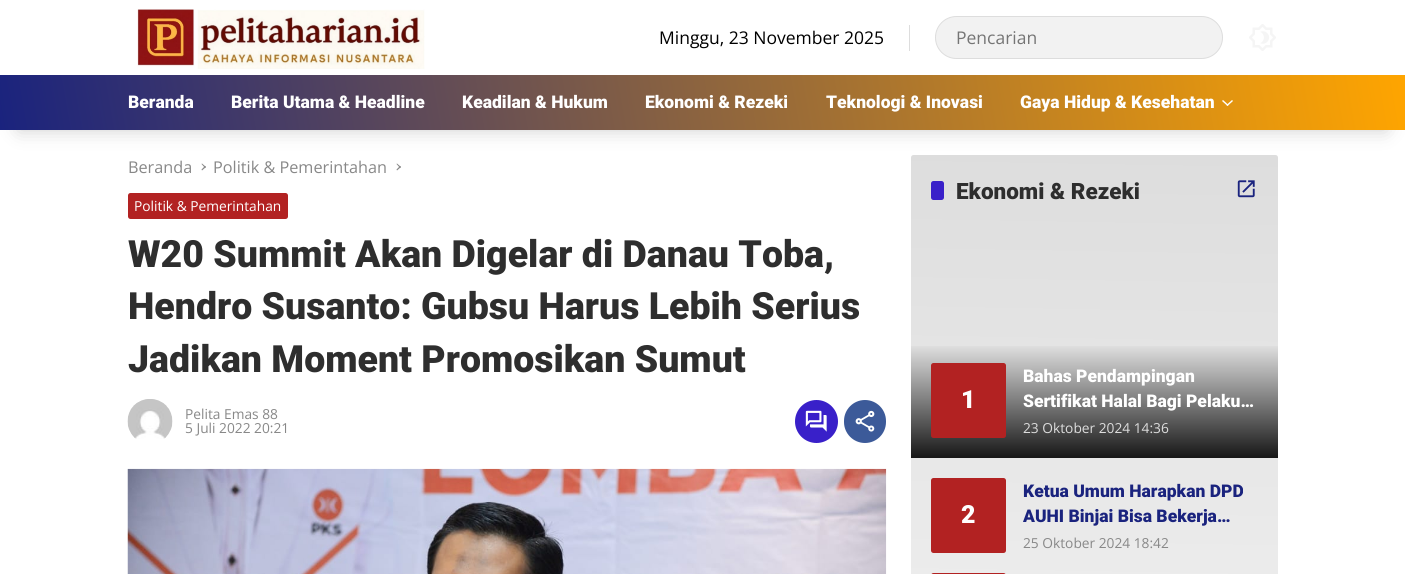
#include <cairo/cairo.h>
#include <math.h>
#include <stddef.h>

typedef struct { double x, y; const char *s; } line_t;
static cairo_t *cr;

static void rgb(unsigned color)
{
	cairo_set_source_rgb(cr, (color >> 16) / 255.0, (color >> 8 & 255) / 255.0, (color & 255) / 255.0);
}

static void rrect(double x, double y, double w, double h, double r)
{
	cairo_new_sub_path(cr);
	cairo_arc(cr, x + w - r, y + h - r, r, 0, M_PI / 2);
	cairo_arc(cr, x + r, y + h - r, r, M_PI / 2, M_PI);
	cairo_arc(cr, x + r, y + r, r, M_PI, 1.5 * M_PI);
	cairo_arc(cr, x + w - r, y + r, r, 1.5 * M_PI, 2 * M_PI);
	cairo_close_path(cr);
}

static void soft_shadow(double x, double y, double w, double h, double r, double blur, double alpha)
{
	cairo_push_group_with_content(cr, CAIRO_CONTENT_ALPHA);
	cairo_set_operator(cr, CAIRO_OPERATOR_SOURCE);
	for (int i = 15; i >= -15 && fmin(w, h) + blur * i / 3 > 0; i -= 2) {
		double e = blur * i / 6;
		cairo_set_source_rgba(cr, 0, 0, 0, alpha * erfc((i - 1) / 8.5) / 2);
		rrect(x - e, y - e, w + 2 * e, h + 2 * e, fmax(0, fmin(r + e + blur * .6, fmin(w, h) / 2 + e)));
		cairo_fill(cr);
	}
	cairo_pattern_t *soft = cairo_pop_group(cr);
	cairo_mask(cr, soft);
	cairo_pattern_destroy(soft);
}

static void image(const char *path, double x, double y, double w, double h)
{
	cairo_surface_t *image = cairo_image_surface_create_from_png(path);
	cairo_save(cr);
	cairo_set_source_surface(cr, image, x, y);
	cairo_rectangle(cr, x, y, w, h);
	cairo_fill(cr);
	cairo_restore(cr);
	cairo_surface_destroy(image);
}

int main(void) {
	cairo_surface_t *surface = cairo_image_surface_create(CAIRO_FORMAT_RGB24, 1405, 574);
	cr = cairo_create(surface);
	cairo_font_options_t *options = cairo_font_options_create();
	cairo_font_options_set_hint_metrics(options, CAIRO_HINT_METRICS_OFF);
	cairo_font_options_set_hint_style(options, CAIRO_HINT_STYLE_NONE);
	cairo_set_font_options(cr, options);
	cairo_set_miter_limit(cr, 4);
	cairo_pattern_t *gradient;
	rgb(0xffffff);
	cairo_paint(cr);
	image("img/1.png", 137, 9, 288, 60);
	rgb(0xdddddd);
	cairo_rectangle(cr, 909, 25, 1, 26);
	cairo_fill(cr);
	rgb(0xf2f2f2);
	rrect(935.5, 16.5, 287, 42, 21);
	cairo_fill_preserve(cr);
	rgb(0xdddddd);
	cairo_set_line_width(cr, 1);
	cairo_stroke(cr);
	image("img/2.png", 1249, 24, 27, 27);
	gradient = cairo_pattern_create_linear(1090, 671, 1099, 152);
	cairo_pattern_add_color_stop_rgba(gradient, 0, 0.937, 0.937, 0.937, 1);
	cairo_pattern_add_color_stop_rgba(gradient, 1, 0.867, 0.867, 0.867, 1);
	cairo_set_source(cr, gradient);
	cairo_pattern_destroy(gradient);
	rrect(911, 155, 367, 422, 2.5);
	cairo_fill(cr);
	rgb(0x000000);
	soft_shadow(19, 113, 1367, 17, 0, 9.5, 0.2);
	gradient = cairo_pattern_create_linear(16, 223, 1389, -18);
	cairo_pattern_add_color_stop_rgba(gradient, 0, 0.102, 0.137, 0.494, 1);
	cairo_pattern_add_color_stop_rgba(gradient, 1, 1, 0.647, 0, 1);
	cairo_set_source(cr, gradient);
	cairo_pattern_destroy(gradient);
	cairo_rectangle(cr, 0, 75, 1405, 55);
	cairo_fill(cr);
	rgb(0xffffff);
	cairo_new_path(cr);
	cairo_move_to(cr, 1232, 100);
	cairo_line_to(cr, 1233, 101);
	cairo_line_to(cr, 1227.5, 106);
	cairo_line_to(cr, 1226.5, 105);
	cairo_close_path(cr);
	cairo_fill(cr);
	cairo_new_path(cr);
	cairo_move_to(cr, 1223, 100);
	cairo_line_to(cr, 1228.5, 105);
	cairo_line_to(cr, 1227.5, 106);
	cairo_line_to(cr, 1222, 101);
	cairo_close_path(cr);
	cairo_fill(cr);
	rgb(0x888888);
	cairo_new_path(cr);
	cairo_move_to(cr, 201.5, 164);
	cairo_line_to(cr, 202, 163.5);
	cairo_line_to(cr, 206, 167);
	cairo_line_to(cr, 205, 168);
	cairo_close_path(cr);
	cairo_fill(cr);
	cairo_new_path(cr);
	cairo_move_to(cr, 201.5, 169.5);
	cairo_line_to(cr, 205, 166);
	cairo_line_to(cr, 206, 167);
	cairo_line_to(cr, 202, 170.5);
	cairo_close_path(cr);
	cairo_fill(cr);
	cairo_new_path(cr);
	cairo_move_to(cr, 396.5, 164);
	cairo_line_to(cr, 397, 163.5);
	cairo_line_to(cr, 401, 167);
	cairo_line_to(cr, 400, 168);
	cairo_close_path(cr);
	cairo_fill(cr);
	cairo_new_path(cr);
	cairo_move_to(cr, 396.5, 169.5);
	cairo_line_to(cr, 400, 166);
	cairo_line_to(cr, 401, 167);
	cairo_line_to(cr, 397, 170.5);
	cairo_close_path(cr);
	cairo_fill(cr);
	rgb(0xb22222);
	rrect(128, 193, 160, 26, 2.5);
	cairo_fill(cr);
	image("img/3.png", 127, 399, 46, 40);
	rgb(0x3920c9);
	cairo_arc(cr, 816.5, 421.5, 21.5, 0, 2 * M_PI);
	cairo_fill(cr);
	image("img/4.png", 805, 410, 22, 22);
	rgb(0x3c5a99);
	rrect(844, 400, 42, 43, 21);
	cairo_fill(cr);
	image("img/5.png", 855, 410, 20, 22);
	image("img/6.png", 127, 468, 760, 106);
	rgb(0x3920c9);
	rrect(931, 181, 13, 19, 2.5);
	cairo_fill(cr);
	image("img/7.png", 1237, 180, 18, 18);
	gradient = cairo_pattern_create_linear(1094, 458, 1094, 343);
	cairo_pattern_add_color_stop_rgba(gradient, 0, 0, 0, 0, 0.9);
	cairo_pattern_add_color_stop_rgba(gradient, 1, 0, 0, 0, 0);
	cairo_set_source(cr, gradient);
	cairo_pattern_destroy(gradient);
	cairo_rectangle(cr, 911, 346, 367, 112);
	cairo_fill(cr);
	rgb(0xb22222);
	rrect(931, 363, 75, 75, 2.5);
	cairo_fill(cr);
	rrect(931, 478, 75, 75, 2.5);
	cairo_fill(cr);
	rrect(931, 573, 75, 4, 2.5);
	cairo_fill(cr);
	cairo_select_font_face(cr, "Open Sans", CAIRO_FONT_SLANT_NORMAL, CAIRO_FONT_WEIGHT_NORMAL);
	cairo_set_font_size(cr, 17.5);
	rgb(0x000000);
	cairo_move_to(cr, 659, 44);
	cairo_show_text(cr, "Minggu, 23 November 2025");
	rgb(0x757575);
	cairo_move_to(cr, 956, 44);
	cairo_show_text(cr, "Pencarian");
	cairo_select_font_face(cr, "Roboto Black", CAIRO_FONT_SLANT_NORMAL, CAIRO_FONT_WEIGHT_NORMAL);
	rgb(0xffffff);
	{
		static const line_t items[] = {
			{128, 108, "Beranda"},
			{231, 108, "Berita Utama & Headline"},
			{462, 108, "Keadilan & Hukum"},
			{645, 108, "Ekonomi & Rezeki"},
			{826, 108, "Teknologi & Inovasi"},
			{1020, 108, "Gaya Hidup & Kesehatan"},
		};
		for (size_t i = 0; i < sizeof items / sizeof *items; i++) {
			cairo_move_to(cr, items[i].x, items[i].y);
			cairo_show_text(cr, items[i].s);
		}
	}
	cairo_select_font_face(cr, "Open Sans", CAIRO_FONT_SLANT_NORMAL, CAIRO_FONT_WEIGHT_NORMAL);
	cairo_set_font_size(cr, 16.25);
	rgb(0x888888);
	cairo_move_to(cr, 128, 173);
	cairo_show_text(cr, "Beranda");
	cairo_move_to(cr, 213, 173);
	cairo_show_text(cr, "Politik & Pemerintahan");
	cairo_set_font_size(cr, 13.75);
	rgb(0xffffff);
	cairo_move_to(cr, 134, 211);
	cairo_show_text(cr, "Politik & Pemerintahan");
	cairo_select_font_face(cr, "Roboto Black", CAIRO_FONT_SLANT_NORMAL, CAIRO_FONT_WEIGHT_NORMAL);
	cairo_set_font_size(cr, 37.5);
	rgb(0x2e2e2e);
	{
		static const line_t items[] = {
			{128, 267, "W20 Summit Akan Digelar di Danau Toba,"},
			{128, 319, "Hendro Susanto: Gubsu Harus Lebih Serius"},
			{128, 372, "Jadikan Moment Promosikan Sumut"},
		};
		for (size_t i = 0; i < sizeof items / sizeof *items; i++) {
			cairo_move_to(cr, items[i].x, items[i].y);
			cairo_show_text(cr, items[i].s);
		}
	}
	cairo_select_font_face(cr, "Open Sans", CAIRO_FONT_SLANT_NORMAL, CAIRO_FONT_WEIGHT_NORMAL);
	cairo_set_font_size(cr, 13.75);
	rgb(0x888888);
	cairo_move_to(cr, 185, 419);
	cairo_show_text(cr, "Pelita Emas 88");
	cairo_move_to(cr, 185, 433);
	cairo_show_text(cr, "5 Juli 2022 20:21");
	cairo_select_font_face(cr, "Roboto Black", CAIRO_FONT_SLANT_NORMAL, CAIRO_FONT_WEIGHT_NORMAL);
	cairo_set_font_size(cr, 22.5);
	rgb(0x2e2e2e);
	cairo_move_to(cr, 956, 199);
	cairo_show_text(cr, "Ekonomi & Rezeki");
	cairo_set_font_size(cr, 25);
	rgb(0xffffff);
	cairo_move_to(cr, 961, 408);
	cairo_show_text(cr, "1");
	cairo_set_font_size(cr, 17.5);
	cairo_move_to(cr, 1023, 382);
	cairo_show_text(cr, "Bahas Pendampingan");
	cairo_move_to(cr, 1023, 407);
	cairo_show_text(cr, "Sertifikat Halal Bagi Pelaku…");
	cairo_select_font_face(cr, "Open Sans", CAIRO_FONT_SLANT_NORMAL, CAIRO_FONT_WEIGHT_NORMAL);
	cairo_set_font_size(cr, 13.75);
	rgb(0xdddddd);
	cairo_move_to(cr, 1023, 433);
	cairo_show_text(cr, "23 Oktober 2024 14:36");
	cairo_select_font_face(cr, "Roboto Black", CAIRO_FONT_SLANT_NORMAL, CAIRO_FONT_WEIGHT_NORMAL);
	cairo_set_font_size(cr, 25);
	rgb(0xffffff);
	cairo_move_to(cr, 961, 523);
	cairo_show_text(cr, "2");
	cairo_set_font_size(cr, 17.5);
	rgb(0x1a237e);
	cairo_move_to(cr, 1023, 497);
	cairo_show_text(cr, "Ketua Umum Harapkan DPD");
	cairo_move_to(cr, 1023, 522);
	cairo_show_text(cr, "AUHI Binjai Bisa Bekerja…");
	cairo_select_font_face(cr, "Open Sans", CAIRO_FONT_SLANT_NORMAL, CAIRO_FONT_WEIGHT_NORMAL);
	cairo_set_font_size(cr, 13.75);
	rgb(0x888888);
	cairo_move_to(cr, 1023, 548);
	cairo_show_text(cr, "25 Oktober 2024 18:42");
	cairo_surface_write_to_png(surface, "page.png");
	cairo_font_options_destroy(options);
	cairo_destroy(cr);
	cairo_surface_destroy(surface);
	return 0;
}
